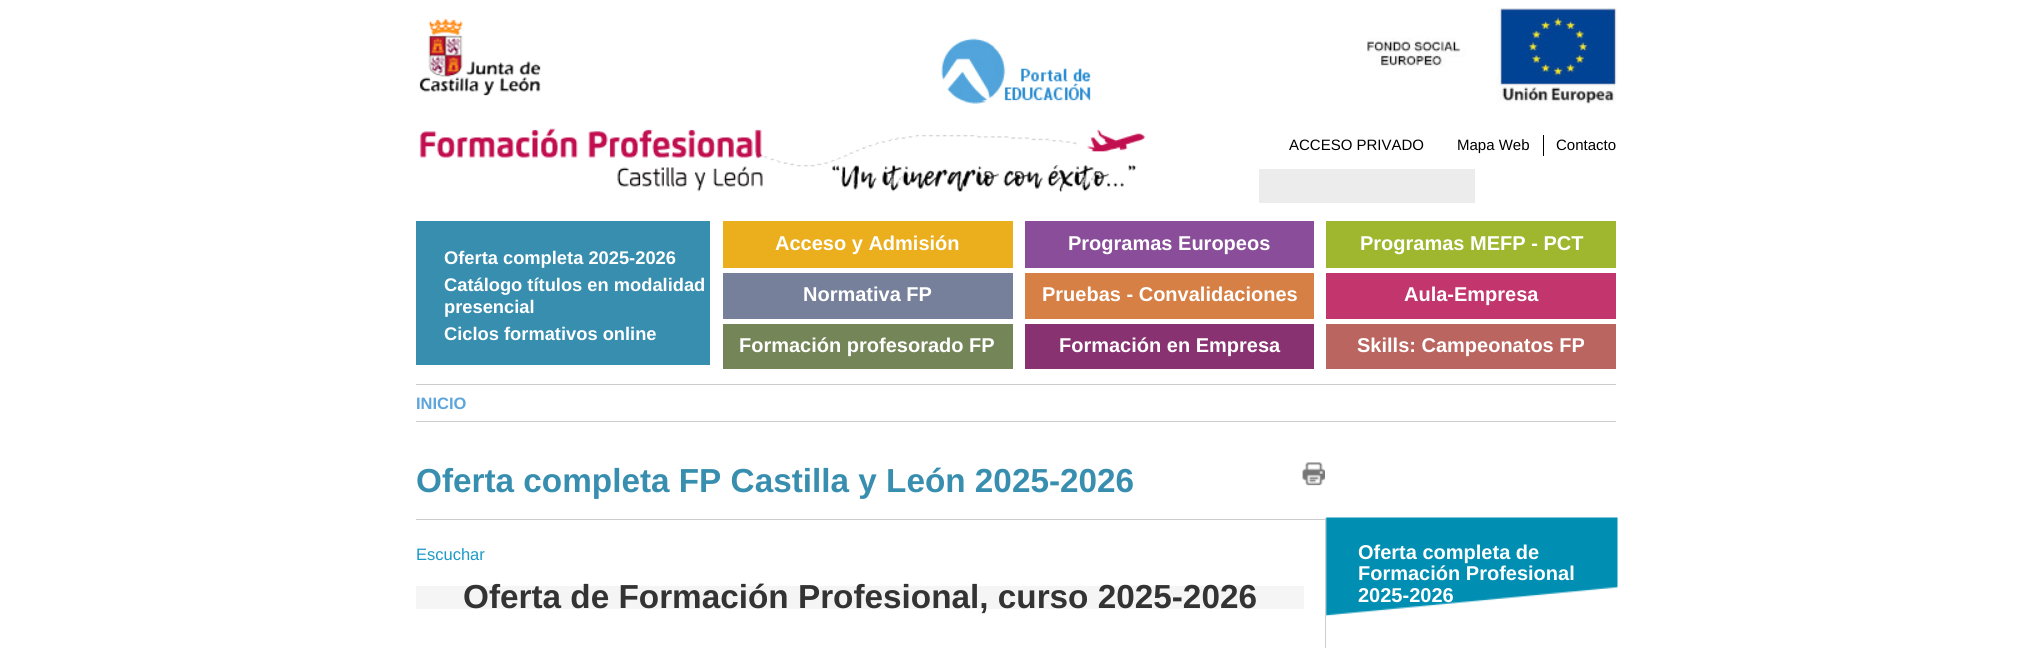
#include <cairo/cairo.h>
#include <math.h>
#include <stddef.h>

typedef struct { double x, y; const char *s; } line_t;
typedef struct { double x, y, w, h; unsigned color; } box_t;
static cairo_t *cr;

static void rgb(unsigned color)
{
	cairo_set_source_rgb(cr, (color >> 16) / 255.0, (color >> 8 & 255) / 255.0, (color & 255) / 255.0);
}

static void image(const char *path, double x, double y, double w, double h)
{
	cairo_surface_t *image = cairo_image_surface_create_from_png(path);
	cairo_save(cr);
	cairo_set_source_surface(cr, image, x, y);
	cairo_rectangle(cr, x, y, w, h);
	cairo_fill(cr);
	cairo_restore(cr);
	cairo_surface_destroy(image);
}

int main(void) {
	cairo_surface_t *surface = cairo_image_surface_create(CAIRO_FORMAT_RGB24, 2032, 648);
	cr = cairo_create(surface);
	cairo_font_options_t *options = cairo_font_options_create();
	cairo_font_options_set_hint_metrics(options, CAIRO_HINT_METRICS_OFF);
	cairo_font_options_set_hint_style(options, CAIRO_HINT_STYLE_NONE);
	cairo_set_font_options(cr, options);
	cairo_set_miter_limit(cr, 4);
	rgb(0xffffff);
	cairo_paint(cr);
	image("img/1.png", 419, 18, 122, 78);
	image("img/2.png", 941, 38, 150, 66);
	image("img/3.png", 1367, 7, 250, 97);
	image("img/4.png", 419, 128, 727, 64);
	{
		static const box_t items[] = {
			{1543, 135, 1, 21, 0x000000},
			{1259, 169, 216, 34, 0xececec},
			{416, 221, 294, 144, 0x388eaf},
			{723, 221, 290, 47, 0xebae1d},
			{1025, 221, 289, 47, 0x8a4d9a},
			{1326, 221, 290, 47, 0x9fb72f},
			{723, 273, 290, 46, 0x76809b},
			{1025, 273, 289, 46, 0xd68046},
			{1326, 273, 290, 46, 0xc2356d},
			{723, 324, 290, 45, 0x748558},
			{1025, 324, 289, 45, 0x883271},
			{1326, 324, 290, 45, 0xba6560},
			{416, 384, 1200, 1, 0xcccccc},
			{416, 421, 1200, 1, 0xcccccc},
			{416, 519, 909, 1, 0xcccccc},
		};
		for (size_t i = 0; i < sizeof items / sizeof *items; i++) {
			rgb(items[i].color);
			cairo_rectangle(cr, items[i].x, items[i].y, items[i].w, items[i].h);
			cairo_fill(cr);
		}
	}
	image("img/5.png", 1302, 462, 23, 24);
	rgb(0xf5f5f5);
	cairo_rectangle(cr, 416, 586, 888, 23);
	cairo_fill(cr);
	rgb(0xcccccc);
	cairo_rectangle(cr, 1325, 518, 1, 130);
	cairo_fill(cr);
	image("img/6.png", 1326, 517, 292, 100);
	cairo_select_font_face(cr, "Liberation Sans", CAIRO_FONT_SLANT_NORMAL, CAIRO_FONT_WEIGHT_NORMAL);
	cairo_set_font_size(cr, 15);
	rgb(0x000000);
	{
		static const line_t items[] = {
			{1289, 150, "ACCESO PRIVADO"},
			{1457, 150, "Mapa Web"},
			{1556, 150, "Contacto"},
		};
		for (size_t i = 0; i < sizeof items / sizeof *items; i++) {
			cairo_move_to(cr, items[i].x, items[i].y);
			cairo_show_text(cr, items[i].s);
		}
	}
	cairo_select_font_face(cr, "Liberation Sans", CAIRO_FONT_SLANT_NORMAL, CAIRO_FONT_WEIGHT_BOLD);
	cairo_set_font_size(cr, 18.3);
	rgb(0xffffff);
	{
		static const line_t items[] = {
			{444, 264, "Oferta completa 2025-2026"},
			{444, 291, "Catálogo títulos en modalidad"},
			{444, 313, "presencial"},
			{444, 340, "Ciclos formativos online"},
		};
		for (size_t i = 0; i < sizeof items / sizeof *items; i++) {
			cairo_move_to(cr, items[i].x, items[i].y);
			cairo_show_text(cr, items[i].s);
		}
	}
	cairo_set_font_size(cr, 20);
	{
		static const line_t items[] = {
			{775, 250, "Acceso y Admisión"},
			{1068, 250, "Programas Europeos"},
			{1360, 250, "Programas MEFP - PCT"},
			{803, 301, "Normativa FP"},
			{1042, 301, "Pruebas - Convalidaciones"},
			{1404, 301, "Aula-Empresa"},
			{739, 352, "Formación profesorado FP"},
			{1059, 352, "Formación en Empresa"},
			{1357, 352, "Skills: Campeonatos FP"},
		};
		for (size_t i = 0; i < sizeof items / sizeof *items; i++) {
			cairo_move_to(cr, items[i].x, items[i].y);
			cairo_show_text(cr, items[i].s);
		}
	}
	cairo_set_font_size(cr, 16.5);
	rgb(0x5da5db);
	cairo_move_to(cr, 416, 409);
	cairo_show_text(cr, "INICIO");
	cairo_set_font_size(cr, 33.3);
	rgb(0x388eaf);
	cairo_move_to(cr, 416, 492);
	cairo_show_text(cr, "Oferta completa FP Castilla y León 2025-2026");
	cairo_select_font_face(cr, "Liberation Sans", CAIRO_FONT_SLANT_NORMAL, CAIRO_FONT_WEIGHT_NORMAL);
	cairo_set_font_size(cr, 16.5);
	rgb(0x1b99c7);
	cairo_move_to(cr, 416, 560);
	cairo_show_text(cr, "Escuchar");
	cairo_select_font_face(cr, "Liberation Sans", CAIRO_FONT_SLANT_NORMAL, CAIRO_FONT_WEIGHT_BOLD);
	cairo_set_font_size(cr, 33.3);
	rgb(0x333333);
	cairo_move_to(cr, 463, 608);
	cairo_show_text(cr, "Oferta de Formación Profesional, curso 2025-2026");
	cairo_set_font_size(cr, 20);
	rgb(0xffffff);
	{
		static const line_t items[] = {
			{1358, 559, "Oferta completa de"},
			{1358, 580, "Formación Profesional"},
			{1358, 602, "2025-2026"},
		};
		for (size_t i = 0; i < sizeof items / sizeof *items; i++) {
			cairo_move_to(cr, items[i].x, items[i].y);
			cairo_show_text(cr, items[i].s);
		}
	}
	cairo_surface_write_to_png(surface, "page.png");
	cairo_font_options_destroy(options);
	cairo_destroy(cr);
	cairo_surface_destroy(surface);
	return 0;
}
